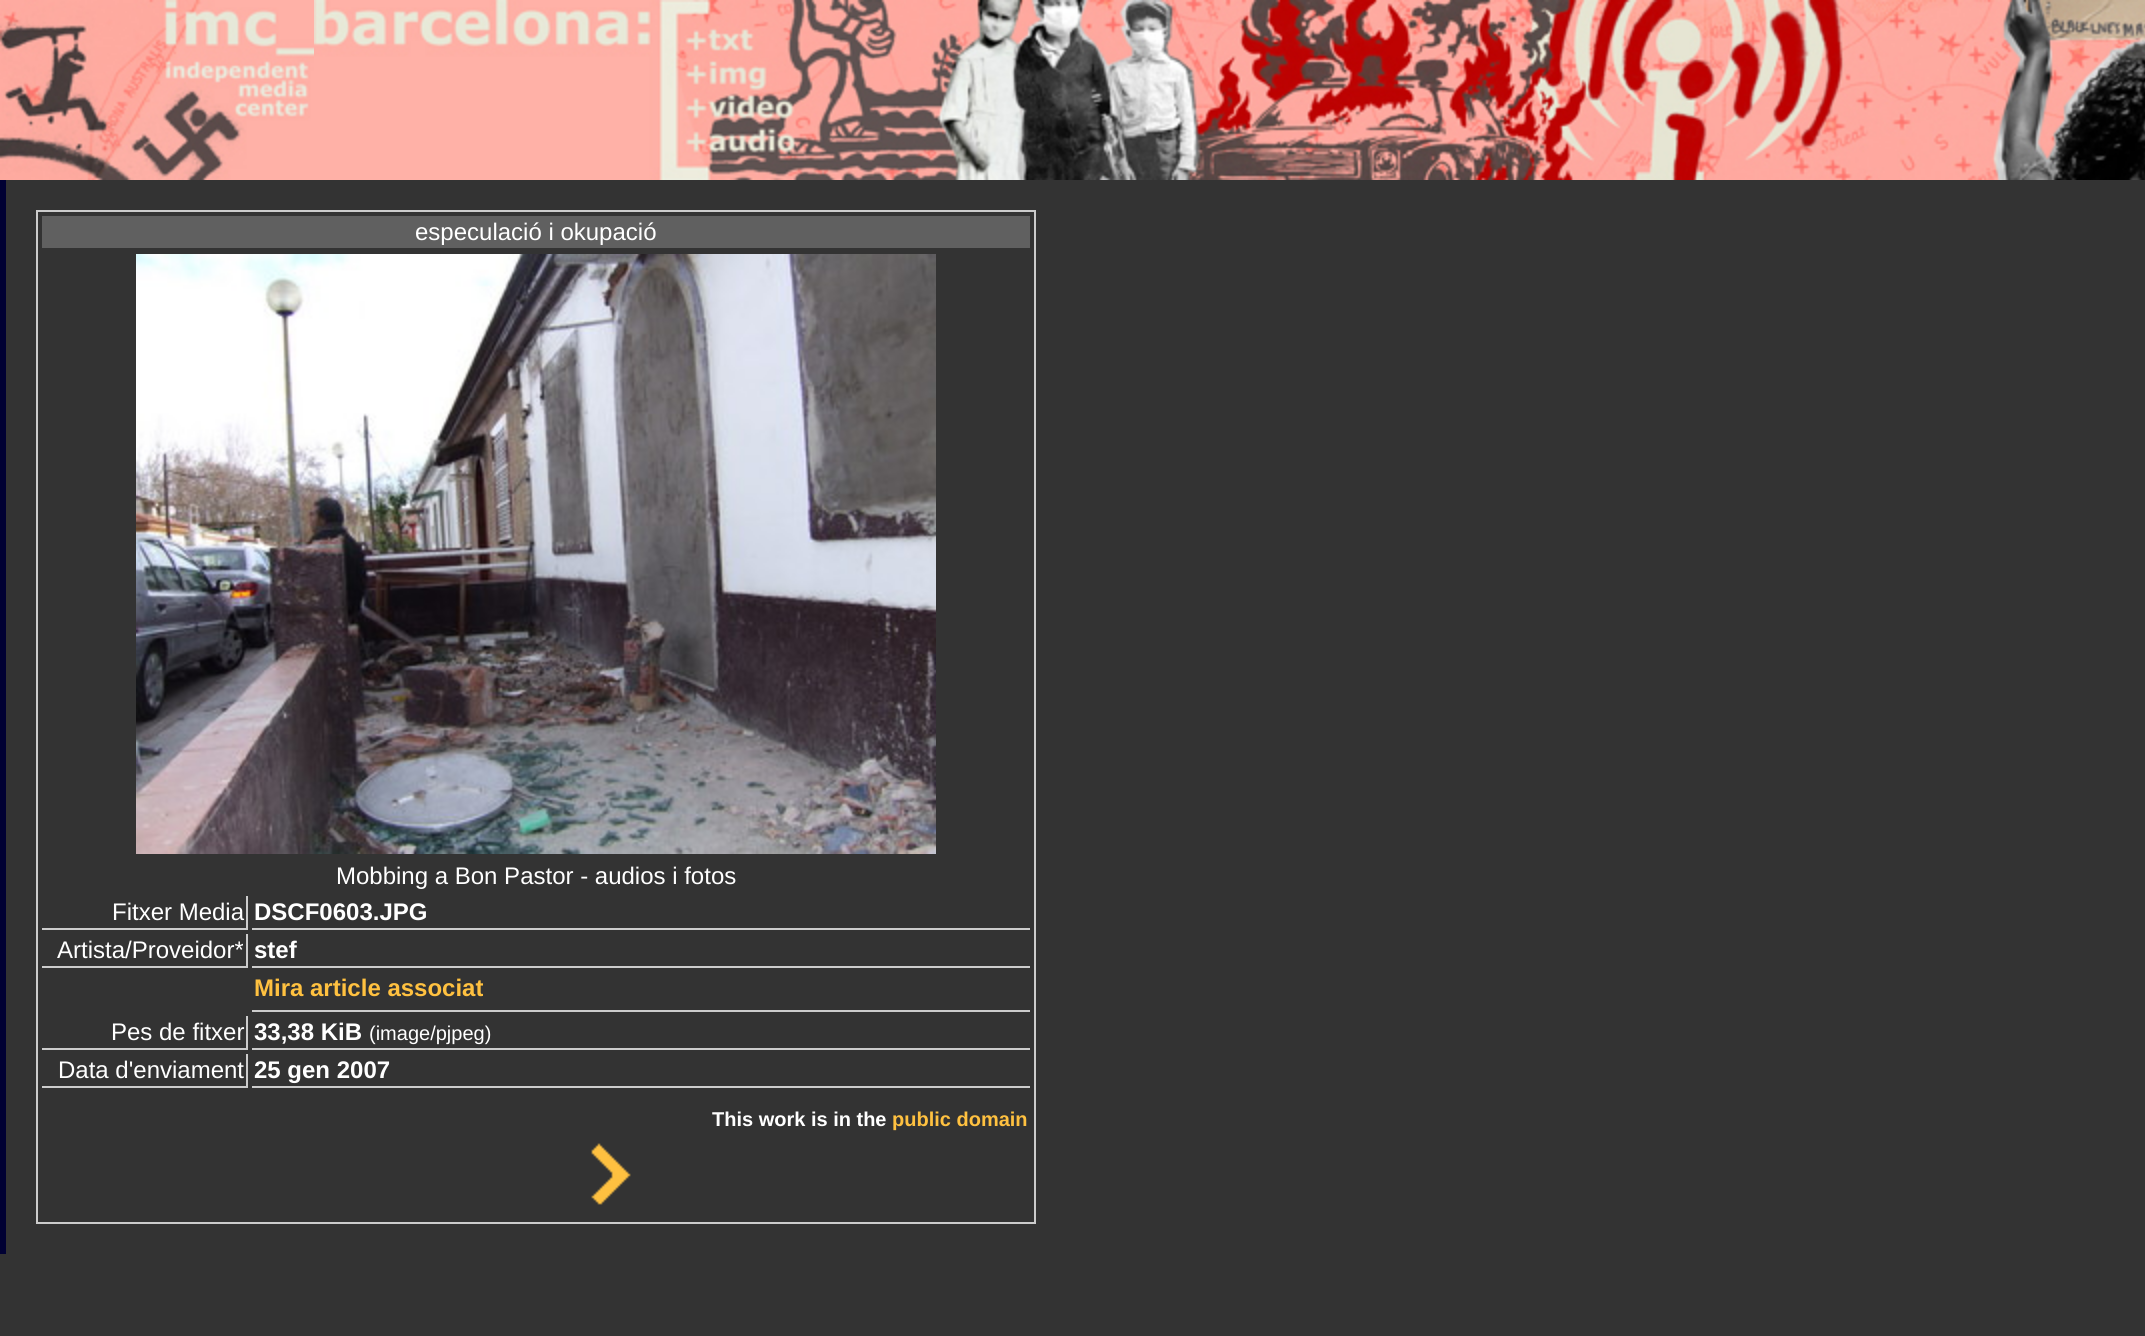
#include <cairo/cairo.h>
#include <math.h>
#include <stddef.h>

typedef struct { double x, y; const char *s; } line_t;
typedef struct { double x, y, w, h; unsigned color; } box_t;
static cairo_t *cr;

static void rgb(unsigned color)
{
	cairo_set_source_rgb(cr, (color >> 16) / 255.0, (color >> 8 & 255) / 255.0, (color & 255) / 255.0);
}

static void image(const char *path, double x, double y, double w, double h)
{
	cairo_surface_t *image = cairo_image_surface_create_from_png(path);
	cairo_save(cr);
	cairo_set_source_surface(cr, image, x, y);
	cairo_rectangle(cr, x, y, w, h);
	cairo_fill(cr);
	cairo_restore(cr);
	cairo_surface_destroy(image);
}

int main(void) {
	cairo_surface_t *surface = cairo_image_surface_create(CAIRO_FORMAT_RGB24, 2145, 1336);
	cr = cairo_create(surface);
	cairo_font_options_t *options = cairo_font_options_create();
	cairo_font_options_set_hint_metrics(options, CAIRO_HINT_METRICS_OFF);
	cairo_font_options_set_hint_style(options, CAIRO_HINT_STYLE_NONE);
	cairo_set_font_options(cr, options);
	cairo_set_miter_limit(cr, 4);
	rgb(0x333333);
	cairo_paint(cr);
	image("img/1.png", 0, 0, 314, 180);
	image("img/2.png", 314, 0, 1831, 180);
	rgb(0x000033);
	cairo_rectangle(cr, 0, 180, 6, 1074);
	cairo_fill(cr);
	cairo_rectangle(cr, 37, 211, 998, 1012);
	rgb(0xcccccc);
	cairo_stroke(cr);
	rgb(0x606060);
	cairo_rectangle(cr, 42, 216, 988, 32);
	cairo_fill(cr);
	image("img/3.png", 136, 254, 800, 600);
	{
		static const box_t items[] = {
			{246, 896, 2, 34, 0xcccccc},
			{42, 928, 206, 2, 0xcccccc},
			{252, 928, 778, 2, 0xcccccc},
			{246, 934, 2, 34, 0xcccccc},
			{42, 966, 206, 2, 0xcccccc},
			{252, 966, 778, 2, 0xcccccc},
			{252, 1010, 778, 2, 0xcccccc},
			{246, 1016, 2, 34, 0xcccccc},
			{42, 1048, 206, 2, 0xcccccc},
			{252, 1048, 778, 2, 0xcccccc},
			{246, 1054, 2, 34, 0xcccccc},
			{42, 1086, 206, 2, 0xcccccc},
			{252, 1086, 778, 2, 0xcccccc},
		};
		for (size_t i = 0; i < sizeof items / sizeof *items; i++) {
			rgb(items[i].color);
			cairo_rectangle(cr, items[i].x, items[i].y, items[i].w, items[i].h);
			cairo_fill(cr);
		}
	}
	image("img/4.png", 591, 1143, 40, 62);
	cairo_select_font_face(cr, "Liberation Sans", CAIRO_FONT_SLANT_NORMAL, CAIRO_FONT_WEIGHT_NORMAL);
	cairo_set_font_size(cr, 24);
	rgb(0xffffff);
	{
		static const line_t items[] = {
			{415, 240, "especulació i okupació"},
			{336, 884, "Mobbing a Bon Pastor - audios i fotos"},
			{112, 920, "Fitxer Media"},
		};
		for (size_t i = 0; i < sizeof items / sizeof *items; i++) {
			cairo_move_to(cr, items[i].x, items[i].y);
			cairo_show_text(cr, items[i].s);
		}
	}
	cairo_select_font_face(cr, "Liberation Sans", CAIRO_FONT_SLANT_NORMAL, CAIRO_FONT_WEIGHT_BOLD);
	cairo_move_to(cr, 254, 920);
	cairo_show_text(cr, "DSCF0603.JPG");
	cairo_select_font_face(cr, "Liberation Sans", CAIRO_FONT_SLANT_NORMAL, CAIRO_FONT_WEIGHT_NORMAL);
	cairo_move_to(cr, 57, 958);
	cairo_show_text(cr, "Artista/Proveidor*");
	cairo_select_font_face(cr, "Liberation Sans", CAIRO_FONT_SLANT_NORMAL, CAIRO_FONT_WEIGHT_BOLD);
	cairo_move_to(cr, 254, 958);
	cairo_show_text(cr, "stef");
	rgb(0xffc140);
	cairo_move_to(cr, 254, 996);
	cairo_show_text(cr, "Mira article associat");
	cairo_select_font_face(cr, "Liberation Sans", CAIRO_FONT_SLANT_NORMAL, CAIRO_FONT_WEIGHT_NORMAL);
	rgb(0xffffff);
	cairo_move_to(cr, 111, 1040);
	cairo_show_text(cr, "Pes de fitxer");
	cairo_select_font_face(cr, "Liberation Sans", CAIRO_FONT_SLANT_NORMAL, CAIRO_FONT_WEIGHT_BOLD);
	cairo_move_to(cr, 254, 1040);
	cairo_show_text(cr, "33,38 KiB");
	cairo_select_font_face(cr, "Liberation Sans", CAIRO_FONT_SLANT_NORMAL, CAIRO_FONT_WEIGHT_NORMAL);
	cairo_set_font_size(cr, 20);
	cairo_move_to(cr, 369, 1040);
	cairo_show_text(cr, "(image/pjpeg)");
	cairo_set_font_size(cr, 24);
	cairo_move_to(cr, 58, 1078);
	cairo_show_text(cr, "Data d'enviament");
	cairo_select_font_face(cr, "Liberation Sans", CAIRO_FONT_SLANT_NORMAL, CAIRO_FONT_WEIGHT_BOLD);
	cairo_move_to(cr, 254, 1078);
	cairo_show_text(cr, "25 gen 2007");
	cairo_set_font_size(cr, 20);
	cairo_move_to(cr, 712, 1126);
	cairo_show_text(cr, "This work is in the");
	rgb(0xffc140);
	cairo_move_to(cr, 892, 1126);
	cairo_show_text(cr, "public domain");
	cairo_surface_write_to_png(surface, "page.png");
	cairo_font_options_destroy(options);
	cairo_destroy(cr);
	cairo_surface_destroy(surface);
	return 0;
}
